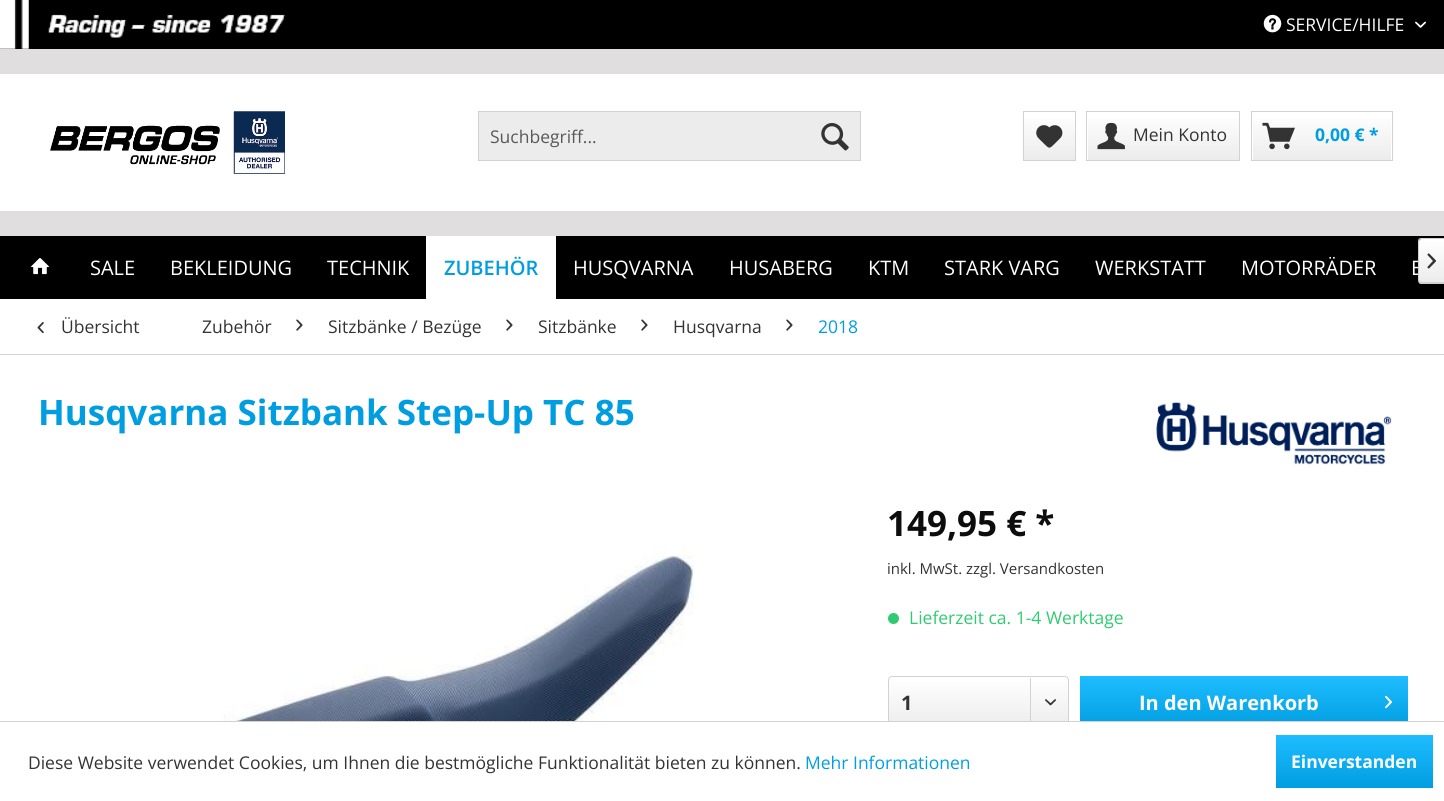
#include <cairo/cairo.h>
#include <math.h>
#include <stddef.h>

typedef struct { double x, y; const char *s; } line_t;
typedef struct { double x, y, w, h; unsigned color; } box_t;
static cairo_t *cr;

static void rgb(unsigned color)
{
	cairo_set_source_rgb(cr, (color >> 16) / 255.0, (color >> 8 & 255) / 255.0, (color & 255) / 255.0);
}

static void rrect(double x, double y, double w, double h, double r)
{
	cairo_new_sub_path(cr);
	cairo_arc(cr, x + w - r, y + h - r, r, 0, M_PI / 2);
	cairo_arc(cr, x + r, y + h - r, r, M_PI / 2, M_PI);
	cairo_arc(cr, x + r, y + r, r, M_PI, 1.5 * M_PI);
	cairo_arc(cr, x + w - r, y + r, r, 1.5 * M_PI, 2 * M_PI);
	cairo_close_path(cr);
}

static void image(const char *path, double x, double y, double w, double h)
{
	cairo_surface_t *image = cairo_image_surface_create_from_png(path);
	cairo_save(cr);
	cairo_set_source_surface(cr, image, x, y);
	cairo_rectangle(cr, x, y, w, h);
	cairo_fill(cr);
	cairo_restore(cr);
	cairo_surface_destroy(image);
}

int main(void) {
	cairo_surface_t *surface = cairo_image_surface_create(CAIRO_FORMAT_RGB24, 1444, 801);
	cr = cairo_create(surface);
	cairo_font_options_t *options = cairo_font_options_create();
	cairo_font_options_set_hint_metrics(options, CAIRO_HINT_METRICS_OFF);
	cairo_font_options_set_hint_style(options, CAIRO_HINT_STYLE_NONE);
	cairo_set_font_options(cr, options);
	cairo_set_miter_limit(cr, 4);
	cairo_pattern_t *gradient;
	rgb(0xe1dee0);
	cairo_paint(cr);
	rgb(0x000000);
	cairo_rectangle(cr, 0, 0, 1444, 49);
	cairo_fill(cr);
	image("img/1.png", 0, 0, 286, 49);
	image("img/2.png", 1263, 14, 19, 19);
	image("img/3.png", 1415, 21, 11, 7);
	rgb(0xffffff);
	cairo_rectangle(cr, 0, 74, 1444, 137);
	cairo_fill(cr);
	image("img/4.png", 50, 111, 235, 63);
	rgb(0xedeced);
	cairo_rectangle(cr, 478.5, 111.5, 382, 49);
	cairo_fill_preserve(cr);
	rgb(0xd5d1d3);
	cairo_set_line_width(cr, 1);
	cairo_stroke(cr);
	image("img/5.png", 821, 123, 28, 28);
	gradient = cairo_pattern_create_linear(1049, 113, 1049, 160);
	cairo_pattern_add_color_stop_rgba(gradient, 0, 1, 1, 1, 1);
	cairo_pattern_add_color_stop_rgba(gradient, 1, 0.929, 0.925, 0.929, 1);
	cairo_set_source(cr, gradient);
	cairo_pattern_destroy(gradient);
	cairo_rectangle(cr, 1024, 119, 51, 41);
	cairo_fill(cr);
	cairo_rectangle(cr, 1023.5, 111.5, 52, 49);
	rgb(0xd5d1d3);
	cairo_stroke(cr);
	image("img/6.png", 1036, 125, 27, 23);
	gradient = cairo_pattern_create_linear(1163, 113, 1163, 160);
	cairo_pattern_add_color_stop_rgba(gradient, 0, 1, 1, 1, 1);
	cairo_pattern_add_color_stop_rgba(gradient, 1, 0.929, 0.925, 0.929, 1);
	cairo_set_source(cr, gradient);
	cairo_pattern_destroy(gradient);
	cairo_rectangle(cr, 1088, 119, 151, 41);
	cairo_fill(cr);
	cairo_rectangle(cr, 1086.5, 111.5, 153, 49);
	rgb(0xd5d1d3);
	cairo_stroke(cr);
	image("img/7.png", 1097, 122, 28, 28);
	gradient = cairo_pattern_create_linear(1322, 113, 1322, 160);
	cairo_pattern_add_color_stop_rgba(gradient, 0, 1, 1, 1, 1);
	cairo_pattern_add_color_stop_rgba(gradient, 1, 0.929, 0.925, 0.929, 1);
	cairo_set_source(cr, gradient);
	cairo_pattern_destroy(gradient);
	cairo_rectangle(cr, 1253, 119, 138, 41);
	cairo_fill(cr);
	cairo_rectangle(cr, 1251.5, 111.5, 141, 49);
	rgb(0xd5d1d3);
	cairo_stroke(cr);
	image("img/8.png", 1262, 122, 33, 28);
	rgb(0x000000);
	cairo_rectangle(cr, 0, 236, 1444, 63);
	cairo_fill(cr);
	image("img/9.png", 31, 258, 18, 17);
	{
		static const box_t items[] = {
			{426, 236, 130, 63, 0xffffff},
			{0, 299, 1444, 422, 0xffffff},
			{0, 354, 1444, 1, 0xd5d1d3},
		};
		for (size_t i = 0; i < sizeof items / sizeof *items; i++) {
			rgb(items[i].color);
			cairo_rectangle(cr, items[i].x, items[i].y, items[i].w, items[i].h);
			cairo_fill(cr);
		}
	}
	image("img/11.png", 37, 322, 7, 12);
	image("img/12.png", 296, 319, 7, 12);
	image("img/12.png", 506, 319, 7, 12);
	image("img/12.png", 641, 319, 7, 12);
	image("img/12.png", 786, 319, 7, 12);
	image("img/13.png", 1156, 402, 236, 63);
	image("img/14.png", 183, 545, 511, 176);
	rgb(0x2ecc71);
	cairo_arc(cr, 893.5, 618.5, 5.5, 0, 2 * M_PI);
	cairo_fill(cr);
	gradient = cairo_pattern_create_linear(978, 678, 978, 728);
	cairo_pattern_add_color_stop_rgba(gradient, 0, 1, 1, 1, 1);
	cairo_pattern_add_color_stop_rgba(gradient, 1, 0.929, 0.925, 0.929, 1);
	cairo_set_source(cr, gradient);
	cairo_pattern_destroy(gradient);
	rrect(889, 678, 179, 50, 2.5);
	cairo_fill(cr);
	rrect(888.5, 676.5, 180, 52, 3.5);
	rgb(0xd5d1d3);
	cairo_stroke(cr);
	cairo_rectangle(cr, 1030, 678, 1, 50);
	cairo_fill(cr);
	image("img/15.png", 1045, 699, 11, 7);
	gradient = cairo_pattern_create_linear(1244, 676, 1244, 729);
	cairo_pattern_add_color_stop_rgba(gradient, 0, 0.118, 0.741, 1, 1);
	cairo_pattern_add_color_stop_rgba(gradient, 1, 0, 0.62, 0.878, 1);
	cairo_set_source(cr, gradient);
	cairo_pattern_destroy(gradient);
	cairo_rectangle(cr, 1080, 676, 328, 45);
	cairo_fill(cr);
	image("img/16.png", 1385, 695, 7, 14);
	rgb(0xffffff);
	cairo_rectangle(cr, 0, 722, 1444, 79);
	cairo_fill(cr);
	rgb(0xd5d1d3);
	cairo_rectangle(cr, 0, 721, 1444, 1);
	cairo_fill(cr);
	gradient = cairo_pattern_create_linear(1354, 735, 1354, 788);
	cairo_pattern_add_color_stop_rgba(gradient, 0, 0.118, 0.741, 1, 1);
	cairo_pattern_add_color_stop_rgba(gradient, 1, 0, 0.62, 0.878, 1);
	cairo_set_source(cr, gradient);
	cairo_pattern_destroy(gradient);
	cairo_rectangle(cr, 1276, 735, 157, 53);
	cairo_fill(cr);
	cairo_select_font_face(cr, "Open Sans", CAIRO_FONT_SLANT_NORMAL, CAIRO_FONT_WEIGHT_NORMAL);
	cairo_set_font_size(cr, 17.5);
	rgb(0xffffff);
	cairo_move_to(cr, 1286, 31);
	cairo_show_text(cr, "SERVICE/HILFE");
	rgb(0x595959);
	cairo_move_to(cr, 490, 143);
	cairo_show_text(cr, "Suchbegriff...");
	rgb(0x333333);
	cairo_move_to(cr, 1133, 141);
	cairo_show_text(cr, "Mein Konto");
	cairo_select_font_face(cr, "Open Sans", CAIRO_FONT_SLANT_NORMAL, CAIRO_FONT_WEIGHT_BOLD);
	rgb(0x009ee0);
	cairo_move_to(cr, 1315, 141);
	cairo_show_text(cr, "0,00 € *");
	cairo_select_font_face(cr, "Open Sans", CAIRO_FONT_SLANT_NORMAL, CAIRO_FONT_WEIGHT_NORMAL);
	cairo_set_font_size(cr, 20);
	rgb(0xffffff);
	{
		static const line_t items[] = {
			{90, 275, "SALE"},
			{170, 275, "BEKLEIDUNG"},
			{327, 275, "TECHNIK"},
		};
		for (size_t i = 0; i < sizeof items / sizeof *items; i++) {
			cairo_move_to(cr, items[i].x, items[i].y);
			cairo_show_text(cr, items[i].s);
		}
	}
	cairo_select_font_face(cr, "Open Sans SemiBold", CAIRO_FONT_SLANT_NORMAL, CAIRO_FONT_WEIGHT_NORMAL);
	rgb(0x009ee0);
	cairo_move_to(cr, 444, 275);
	cairo_show_text(cr, "ZUBEHÖR");
	cairo_select_font_face(cr, "Open Sans", CAIRO_FONT_SLANT_NORMAL, CAIRO_FONT_WEIGHT_NORMAL);
	rgb(0xffffff);
	{
		static const line_t items[] = {
			{573, 275, "HUSQVARNA"},
			{729, 275, "HUSABERG"},
			{868, 275, "KTM"},
			{944, 275, "STARK VARG"},
			{1095, 275, "WERKSTATT"},
			{1241, 275, "MOTORRÄDER"},
			{1411, 275, "E"},
		};
		for (size_t i = 0; i < sizeof items / sizeof *items; i++) {
			cairo_move_to(cr, items[i].x, items[i].y);
			cairo_show_text(cr, items[i].s);
		}
	}
	gradient = cairo_pattern_create_linear(1432, 239, 1432, 283);
	cairo_pattern_add_color_stop_rgba(gradient, 0, 1, 1, 1, 1);
	cairo_pattern_add_color_stop_rgba(gradient, 1, 0.929, 0.925, 0.929, 1);
	cairo_set_source(cr, gradient);
	cairo_pattern_destroy(gradient);
	cairo_new_path(cr);
	cairo_move_to(cr, 1421.5, 239);
	cairo_line_to(cr, 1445, 239);
	cairo_line_to(cr, 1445, 283);
	cairo_line_to(cr, 1421.5, 283);
	cairo_curve_to(cr, 1420, 283, 1419, 282, 1419, 280.5);
	cairo_line_to(cr, 1419, 241.5);
	cairo_curve_to(cr, 1419, 240, 1420, 239, 1421.5, 239);
	cairo_close_path(cr);
	cairo_fill(cr);
	rgb(0xd5d1d3);
	cairo_set_fill_rule(cr, CAIRO_FILL_RULE_EVEN_ODD);
	cairo_new_path(cr);
	cairo_move_to(cr, 1421, 238);
	cairo_line_to(cr, 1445, 238);
	cairo_line_to(cr, 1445, 284);
	cairo_line_to(cr, 1421, 284);
	cairo_curve_to(cr, 1419, 284, 1418, 282, 1418, 280);
	cairo_line_to(cr, 1418, 241);
	cairo_curve_to(cr, 1418, 239, 1419, 238, 1421, 238);
	cairo_close_path(cr);
	cairo_move_to(cr, 1421, 239);
	cairo_line_to(cr, 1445, 239);
	cairo_line_to(cr, 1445, 282);
	cairo_line_to(cr, 1421, 282);
	cairo_curve_to(cr, 1420, 282, 1419, 281, 1419, 280);
	cairo_line_to(cr, 1419, 241);
	cairo_curve_to(cr, 1419, 240, 1420, 239, 1421, 239);
	cairo_close_path(cr);
	cairo_fill(cr);
	image("img/10.png", 1427, 253, 9, 16);
	cairo_set_font_size(cr, 17.5);
	rgb(0x333333);
	{
		static const line_t items[] = {
			{61, 333, "Übersicht"},
			{202, 333, "Zubehör"},
			{328, 333, "Sitzbänke / Bezüge"},
			{538, 333, "Sitzbänke"},
			{673, 333, "Husqvarna"},
		};
		for (size_t i = 0; i < sizeof items / sizeof *items; i++) {
			cairo_move_to(cr, items[i].x, items[i].y);
			cairo_show_text(cr, items[i].s);
		}
	}
	rgb(0x009ee0);
	cairo_move_to(cr, 818, 333);
	cairo_show_text(cr, "2018");
	cairo_select_font_face(cr, "Open Sans", CAIRO_FONT_SLANT_NORMAL, CAIRO_FONT_WEIGHT_BOLD);
	cairo_set_font_size(cr, 35);
	cairo_move_to(cr, 38, 425);
	cairo_show_text(cr, "Husqvarna Sitzbank Step-Up TC 85");
	rgb(0x0d0d0d);
	cairo_move_to(cr, 887, 536);
	cairo_show_text(cr, "149,95 € *");
	cairo_select_font_face(cr, "Open Sans", CAIRO_FONT_SLANT_NORMAL, CAIRO_FONT_WEIGHT_NORMAL);
	cairo_set_font_size(cr, 15);
	rgb(0x333333);
	cairo_move_to(cr, 887, 574);
	cairo_show_text(cr, "inkl. MwSt. zzgl. Versandkosten");
	cairo_set_font_size(cr, 17.5);
	rgb(0x2ecc71);
	cairo_move_to(cr, 909, 624);
	cairo_show_text(cr, "Lieferzeit ca. 1-4 Werktage");
	cairo_select_font_face(cr, "Open Sans", CAIRO_FONT_SLANT_NORMAL, CAIRO_FONT_WEIGHT_BOLD);
	cairo_set_font_size(cr, 20);
	rgb(0x333333);
	cairo_move_to(cr, 901, 710);
	cairo_show_text(cr, "1");
	rgb(0xffffff);
	cairo_move_to(cr, 1139, 710);
	cairo_show_text(cr, "In den Warenkorb");
	cairo_select_font_face(cr, "Open Sans", CAIRO_FONT_SLANT_NORMAL, CAIRO_FONT_WEIGHT_NORMAL);
	cairo_set_font_size(cr, 17.5);
	rgb(0x333333);
	cairo_move_to(cr, 28, 769);
	cairo_show_text(cr, "Diese Website verwendet Cookies, um Ihnen die bestmögliche Funktionalität bieten zu können.");
	rgb(0x009ee0);
	cairo_move_to(cr, 805, 769);
	cairo_show_text(cr, "Mehr Informationen");
	cairo_select_font_face(cr, "Open Sans", CAIRO_FONT_SLANT_NORMAL, CAIRO_FONT_WEIGHT_BOLD);
	rgb(0xffffff);
	cairo_move_to(cr, 1291, 768);
	cairo_show_text(cr, "Einverstanden");
	cairo_surface_write_to_png(surface, "page.png");
	cairo_font_options_destroy(options);
	cairo_destroy(cr);
	cairo_surface_destroy(surface);
	return 0;
}
